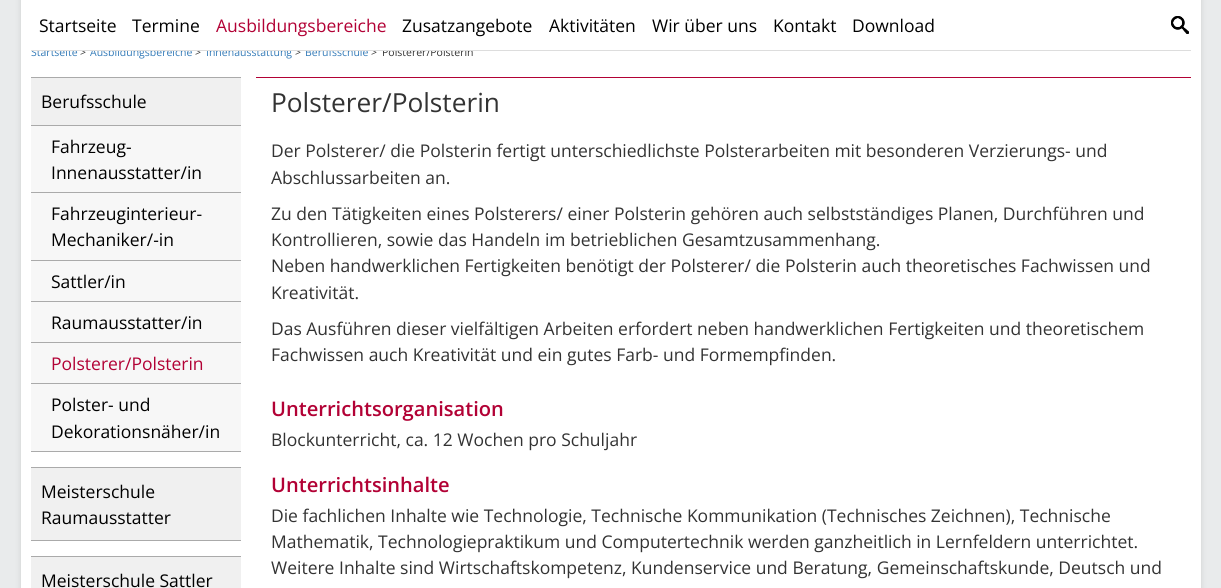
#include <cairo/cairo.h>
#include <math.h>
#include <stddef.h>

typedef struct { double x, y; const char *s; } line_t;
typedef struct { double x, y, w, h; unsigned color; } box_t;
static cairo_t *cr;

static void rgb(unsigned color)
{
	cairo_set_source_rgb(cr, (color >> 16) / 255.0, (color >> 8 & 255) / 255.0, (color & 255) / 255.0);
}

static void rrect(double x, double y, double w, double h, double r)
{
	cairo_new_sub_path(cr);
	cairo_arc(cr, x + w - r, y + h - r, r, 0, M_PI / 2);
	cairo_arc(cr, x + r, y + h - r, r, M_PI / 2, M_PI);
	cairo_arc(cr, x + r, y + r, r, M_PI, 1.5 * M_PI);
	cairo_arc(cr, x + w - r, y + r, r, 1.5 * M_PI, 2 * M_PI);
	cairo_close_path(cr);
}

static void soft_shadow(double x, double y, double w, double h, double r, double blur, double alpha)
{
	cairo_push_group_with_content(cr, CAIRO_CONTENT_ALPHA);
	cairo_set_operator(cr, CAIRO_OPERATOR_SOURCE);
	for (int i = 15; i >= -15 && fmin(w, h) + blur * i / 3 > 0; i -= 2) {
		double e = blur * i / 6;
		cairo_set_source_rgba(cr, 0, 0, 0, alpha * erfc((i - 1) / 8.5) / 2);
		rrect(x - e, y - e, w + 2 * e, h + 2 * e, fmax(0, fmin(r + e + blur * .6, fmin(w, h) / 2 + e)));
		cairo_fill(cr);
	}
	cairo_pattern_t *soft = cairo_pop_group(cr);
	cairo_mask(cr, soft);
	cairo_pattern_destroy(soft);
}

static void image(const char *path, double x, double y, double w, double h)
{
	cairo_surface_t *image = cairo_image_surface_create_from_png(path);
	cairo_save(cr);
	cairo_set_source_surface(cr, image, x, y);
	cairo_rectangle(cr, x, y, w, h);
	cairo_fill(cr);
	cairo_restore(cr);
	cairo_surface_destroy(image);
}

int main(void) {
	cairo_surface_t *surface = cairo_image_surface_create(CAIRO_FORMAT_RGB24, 1221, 588);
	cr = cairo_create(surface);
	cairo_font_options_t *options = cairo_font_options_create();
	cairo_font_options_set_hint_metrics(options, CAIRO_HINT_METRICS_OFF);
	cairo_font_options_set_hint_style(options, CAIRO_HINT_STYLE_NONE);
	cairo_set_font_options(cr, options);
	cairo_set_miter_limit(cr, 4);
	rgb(0xe9ebec);
	cairo_paint(cr);
	rgb(0x8e8e8e);
	soft_shadow(21, -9, 1180, 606, 0, 3, 0.3);
	rgb(0xffffff);
	cairo_rectangle(cr, 21, 0, 1180, 588);
	cairo_fill(cr);
	image("img/1.png", 1171, 16, 18, 18);
	image("img/2.png", 1171, 16, 18, 18);
	{
		static const box_t items[] = {
			{31, 78, 210, 47, 0xf0f0f0},
			{31, 77, 210, 1, 0xaaaaaa},
			{31, 451, 210, 1, 0xaaaaaa},
			{31, 126, 210, 66, 0xf7f7f7},
			{31, 125, 210, 1, 0xaaaaaa},
			{31, 193, 210, 67, 0xf7f7f7},
			{31, 192, 210, 1, 0xaaaaaa},
			{31, 261, 210, 40, 0xf7f7f7},
			{31, 260, 210, 1, 0xaaaaaa},
			{31, 302, 210, 40, 0xf7f7f7},
			{31, 301, 210, 1, 0xaaaaaa},
			{31, 343, 210, 40, 0xf7f7f7},
			{31, 342, 210, 1, 0xaaaaaa},
			{31, 384, 210, 67, 0xf7f7f7},
			{31, 383, 210, 1, 0xaaaaaa},
			{31, 468, 210, 72, 0xf0f0f0},
			{31, 467, 210, 1, 0xaaaaaa},
			{31, 540, 210, 1, 0xaaaaaa},
			{31, 557, 210, 31, 0xf0f0f0},
			{31, 556, 210, 1, 0xaaaaaa},
			{256, 77, 935, 1, 0xb20135},
		};
		for (size_t i = 0; i < sizeof items / sizeof *items; i++) {
			rgb(items[i].color);
			cairo_rectangle(cr, items[i].x, items[i].y, items[i].w, items[i].h);
			cairo_fill(cr);
		}
	}
	cairo_select_font_face(cr, "Open Sans", CAIRO_FONT_SLANT_NORMAL, CAIRO_FONT_WEIGHT_NORMAL);
	cairo_set_font_size(cr, 17.5);
	rgb(0x000000);
	cairo_move_to(cr, 39, 32);
	cairo_show_text(cr, "Startseite");
	cairo_move_to(cr, 132, 32);
	cairo_show_text(cr, "Termine");
	rgb(0xb20135);
	cairo_move_to(cr, 216, 32);
	cairo_show_text(cr, "Ausbildungsbereiche");
	rgb(0x000000);
	{
		static const line_t items[] = {
			{402, 32, "Zusatzangebote"},
			{549, 32, "Aktivitäten"},
			{652, 32, "Wir über uns"},
			{773, 32, "Kontakt"},
			{852, 32, "Download"},
		};
		for (size_t i = 0; i < sizeof items / sizeof *items; i++) {
			cairo_move_to(cr, items[i].x, items[i].y);
			cairo_show_text(cr, items[i].s);
		}
	}
	cairo_set_font_size(cr, 10.5);
	rgb(0x337ab7);
	cairo_move_to(cr, 31, 56);
	cairo_show_text(cr, "Startseite");
	rgb(0x333333);
	cairo_move_to(cr, 80, 56);
	cairo_show_text(cr, ">");
	rgb(0x337ab7);
	cairo_move_to(cr, 90, 56);
	cairo_show_text(cr, "Ausbildungsbereiche");
	rgb(0x333333);
	cairo_move_to(cr, 195, 56);
	cairo_show_text(cr, ">");
	rgb(0x337ab7);
	cairo_move_to(cr, 206, 56);
	cairo_show_text(cr, "Innenausstattung");
	rgb(0x333333);
	cairo_move_to(cr, 295, 56);
	cairo_show_text(cr, ">");
	rgb(0x337ab7);
	cairo_move_to(cr, 305, 56);
	cairo_show_text(cr, "Berufsschule");
	rgb(0x333333);
	cairo_move_to(cr, 371, 56);
	cairo_show_text(cr, ">");
	cairo_move_to(cr, 382, 56);
	cairo_show_text(cr, "Polsterer/Polsterin");
	rgb(0xdddddd);
	cairo_rectangle(cr, 31, 50, 1160, 1);
	cairo_fill(cr);
	rgb(0xffffff);
	cairo_rectangle(cr, 31, 48, 436, 2);
	cairo_fill(cr);
	cairo_set_font_size(cr, 17.5);
	rgb(0x000000);
	{
		static const line_t items[] = {
			{41, 108, "Berufsschule"},
			{51, 153, "Fahrzeug-"},
			{51, 179, "Innenausstatter/in"},
			{51, 220, "Fahrzeuginterieur-"},
			{51, 246, "Mechaniker/-in"},
			{51, 288, "Sattler/in"},
			{51, 329, "Raumausstatter/in"},
		};
		for (size_t i = 0; i < sizeof items / sizeof *items; i++) {
			cairo_move_to(cr, items[i].x, items[i].y);
			cairo_show_text(cr, items[i].s);
		}
	}
	rgb(0xb20135);
	cairo_move_to(cr, 51, 370);
	cairo_show_text(cr, "Polsterer/Polsterin");
	rgb(0x000000);
	{
		static const line_t items[] = {
			{51, 411, "Polster- und"},
			{51, 438, "Dekorationsnäher/in"},
			{41, 498, "Meisterschule"},
			{41, 524, "Raumausstatter"},
			{41, 587, "Meisterschule Sattler"},
		};
		for (size_t i = 0; i < sizeof items / sizeof *items; i++) {
			cairo_move_to(cr, items[i].x, items[i].y);
			cairo_show_text(cr, items[i].s);
		}
	}
	cairo_set_font_size(cr, 26.25);
	rgb(0x333333);
	cairo_move_to(cr, 271, 112);
	cairo_show_text(cr, "Polsterer/Polsterin");
	cairo_set_font_size(cr, 17.5);
	{
		static const line_t items[] = {
			{271, 157, "Der Polsterer/ die Polsterin fertigt unterschiedlichste Polsterarbeiten mit besonderen Verzierungs- und"},
			{271, 184, "Abschlussarbeiten an."},
			{271, 220, "Zu den Tätigkeiten eines Polsterers/ einer Polsterin gehören auch selbstständiges Planen, Durchführen und"},
			{271, 246, "Kontrollieren, sowie das Handeln im betrieblichen Gesamtzusammenhang."},
			{271, 272, "Neben handwerklichen Fertigkeiten benötigt der Polsterer/ die Polsterin auch theoretisches Fachwissen und"},
			{271, 299, "Kreativität."},
			{271, 335, "Das Ausführen dieser vielfältigen Arbeiten erfordert neben handwerklichen Fertigkeiten und theoretischem"},
			{271, 361, "Fachwissen auch Kreativität und ein gutes Farb- und Formempfinden."},
		};
		for (size_t i = 0; i < sizeof items / sizeof *items; i++) {
			cairo_move_to(cr, items[i].x, items[i].y);
			cairo_show_text(cr, items[i].s);
		}
	}
	cairo_select_font_face(cr, "Open Sans SemiBold", CAIRO_FONT_SLANT_NORMAL, CAIRO_FONT_WEIGHT_NORMAL);
	cairo_set_font_size(cr, 20.1);
	rgb(0xb20135);
	cairo_move_to(cr, 271, 416);
	cairo_show_text(cr, "Unterrichtsorganisation");
	cairo_select_font_face(cr, "Open Sans", CAIRO_FONT_SLANT_NORMAL, CAIRO_FONT_WEIGHT_NORMAL);
	cairo_set_font_size(cr, 17.5);
	rgb(0x333333);
	cairo_move_to(cr, 271, 446);
	cairo_show_text(cr, "Blockunterricht, ca. 12 Wochen pro Schuljahr");
	cairo_select_font_face(cr, "Open Sans SemiBold", CAIRO_FONT_SLANT_NORMAL, CAIRO_FONT_WEIGHT_NORMAL);
	cairo_set_font_size(cr, 20.1);
	rgb(0xb20135);
	cairo_move_to(cr, 271, 492);
	cairo_show_text(cr, "Unterrichtsinhalte");
	cairo_select_font_face(cr, "Open Sans", CAIRO_FONT_SLANT_NORMAL, CAIRO_FONT_WEIGHT_NORMAL);
	cairo_set_font_size(cr, 17.5);
	rgb(0x333333);
	{
		static const line_t items[] = {
			{271, 522, "Die fachlichen Inhalte wie Technologie, Technische Kommunikation (Technisches Zeichnen), Technische"},
			{271, 548, "Mathematik, Technologiepraktikum und Computertechnik werden ganzheitlich in Lernfeldern unterrichtet."},
			{271, 574, "Weitere Inhalte sind Wirtschaftskompetenz, Kundenservice und Beratung, Gemeinschaftskunde, Deutsch und"},
		};
		for (size_t i = 0; i < sizeof items / sizeof *items; i++) {
			cairo_move_to(cr, items[i].x, items[i].y);
			cairo_show_text(cr, items[i].s);
		}
	}
	cairo_surface_write_to_png(surface, "page.png");
	cairo_font_options_destroy(options);
	cairo_destroy(cr);
	cairo_surface_destroy(surface);
	return 0;
}
